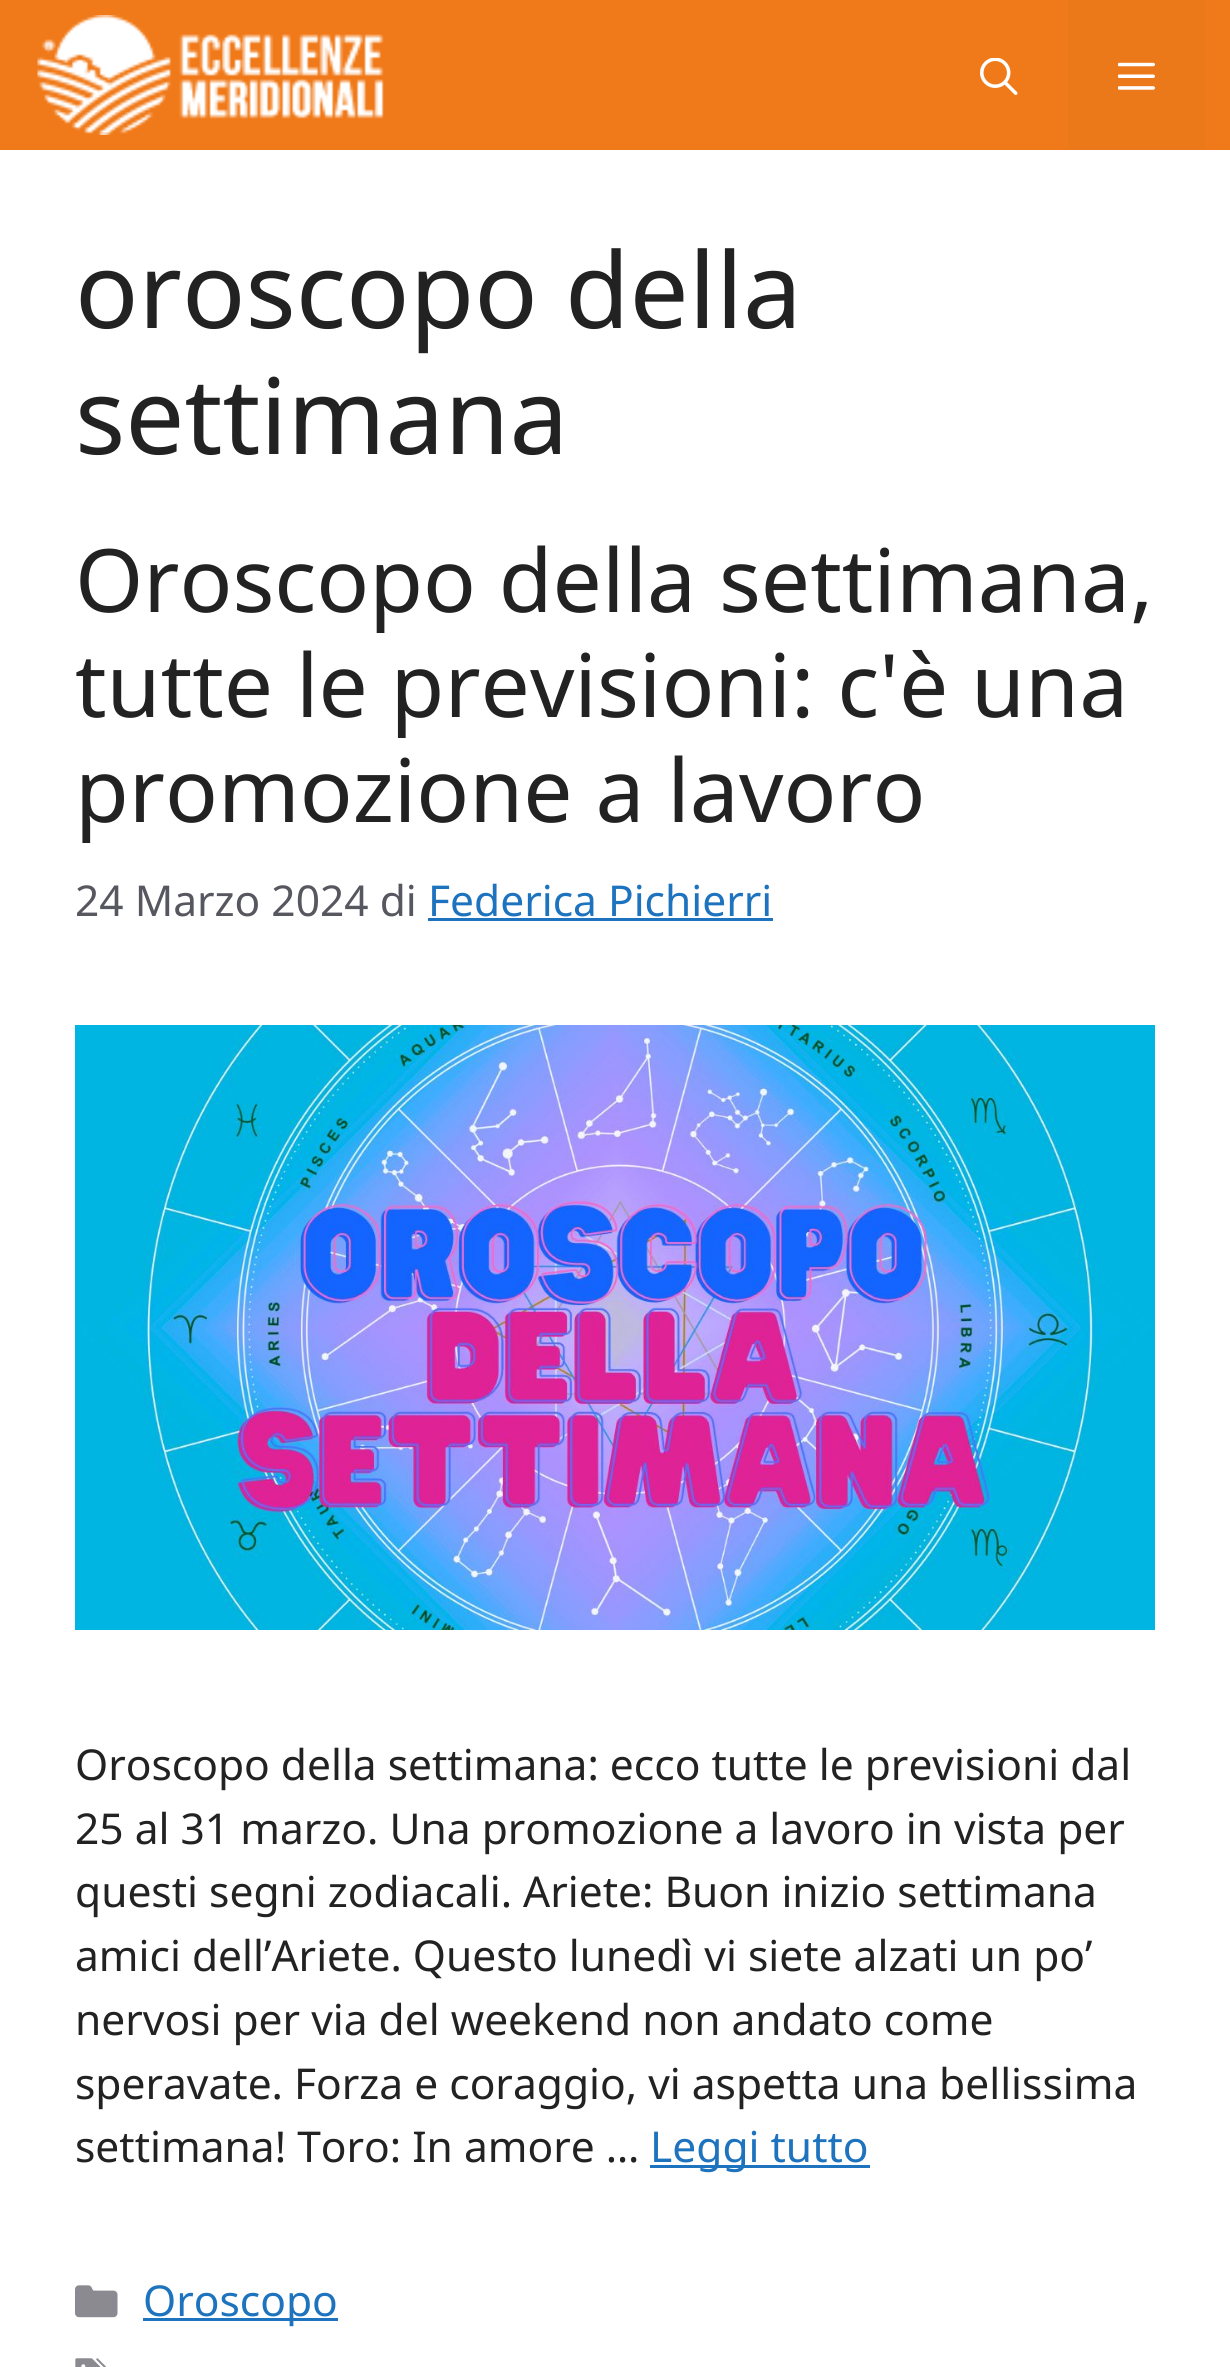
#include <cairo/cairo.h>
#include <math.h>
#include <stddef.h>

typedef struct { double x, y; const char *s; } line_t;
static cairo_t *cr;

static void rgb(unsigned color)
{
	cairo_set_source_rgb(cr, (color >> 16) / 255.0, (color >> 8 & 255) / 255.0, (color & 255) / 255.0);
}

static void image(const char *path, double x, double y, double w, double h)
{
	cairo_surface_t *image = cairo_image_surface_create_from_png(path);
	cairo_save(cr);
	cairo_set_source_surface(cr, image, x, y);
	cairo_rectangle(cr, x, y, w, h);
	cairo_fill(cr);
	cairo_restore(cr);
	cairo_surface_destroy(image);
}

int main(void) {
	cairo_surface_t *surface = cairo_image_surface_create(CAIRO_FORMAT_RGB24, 1230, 2367);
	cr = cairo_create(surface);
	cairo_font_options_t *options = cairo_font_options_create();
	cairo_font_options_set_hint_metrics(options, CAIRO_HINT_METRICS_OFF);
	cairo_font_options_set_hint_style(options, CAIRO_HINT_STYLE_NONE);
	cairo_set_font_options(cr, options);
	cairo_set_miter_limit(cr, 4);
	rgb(0xffffff);
	cairo_paint(cr);
	rgb(0xf07a1a);
	cairo_rectangle(cr, 0, 0, 1230, 150);
	cairo_fill(cr);
	image("img/1.png", 37, 15, 347, 120);
	image("img/2.png", 980, 58, 38, 37);
	rgb(0xeb7819);
	cairo_rectangle(cr, 1068, 0, 137, 150);
	cairo_fill(cr);
	image("img/3.png", 1118, 62, 37, 28);
	rgb(0x1e73be);
	cairo_rectangle(cr, 428, 918, 345, 3);
	cairo_fill(cr);
	image("img/4.png", 75, 1025, 1080, 605);
	cairo_rectangle(cr, 650, 2165, 220, 3);
	cairo_fill(cr);
	image("img/5.png", 75, 2285, 43, 33);
	cairo_rectangle(cr, 143, 2318, 195, 3);
	cairo_fill(cr);
	image("img/6.png", 75, 2358, 32, 9);
	cairo_select_font_face(cr, "Noto Sans", CAIRO_FONT_SLANT_NORMAL, CAIRO_FONT_WEIGHT_NORMAL);
	cairo_set_font_size(cr, 105);
	rgb(0x222222);
	cairo_move_to(cr, 75, 328);
	cairo_show_text(cr, "oroscopo della");
	cairo_move_to(cr, 75, 454);
	cairo_show_text(cr, "settimana");
	cairo_set_font_size(cr, 87.5);
	{
		static const line_t items[] = {
			{75, 612, "Oroscopo della settimana,"},
			{75, 717, "tutte le previsioni: c'è una"},
			{75, 822, "promozione a lavoro"},
		};
		for (size_t i = 0; i < sizeof items / sizeof *items; i++) {
			cairo_move_to(cr, items[i].x, items[i].y);
			cairo_show_text(cr, items[i].s);
		}
	}
	cairo_set_font_size(cr, 42.5);
	rgb(0x575760);
	cairo_move_to(cr, 75, 916);
	cairo_show_text(cr, "24 Marzo 2024 di");
	rgb(0x1e73be);
	cairo_move_to(cr, 428, 916);
	cairo_show_text(cr, "Federica Pichierri");
	rgb(0x222222);
	{
		static const line_t items[] = {
			{75, 1780, "Oroscopo della settimana: ecco tutte le previsioni dal"},
			{75, 1844, "25 al 31 marzo. Una promozione a lavoro in vista per"},
			{75, 1907, "questi segni zodiacali. Ariete: Buon inizio settimana"},
			{75, 1971, "amici dell’Ariete. Questo lunedì vi siete alzati un po’"},
			{75, 2035, "nervosi per via del weekend non andato come"},
			{75, 2099, "speravate. Forza e coraggio, vi aspetta una bellissima"},
			{75, 2162, "settimana! Toro: In amore …"},
		};
		for (size_t i = 0; i < sizeof items / sizeof *items; i++) {
			cairo_move_to(cr, items[i].x, items[i].y);
			cairo_show_text(cr, items[i].s);
		}
	}
	rgb(0x1e73be);
	cairo_move_to(cr, 650, 2162);
	cairo_show_text(cr, "Leggi tutto");
	cairo_move_to(cr, 143, 2316);
	cairo_show_text(cr, "Oroscopo");
	cairo_surface_write_to_png(surface, "page.png");
	cairo_font_options_destroy(options);
	cairo_destroy(cr);
	cairo_surface_destroy(surface);
	return 0;
}
